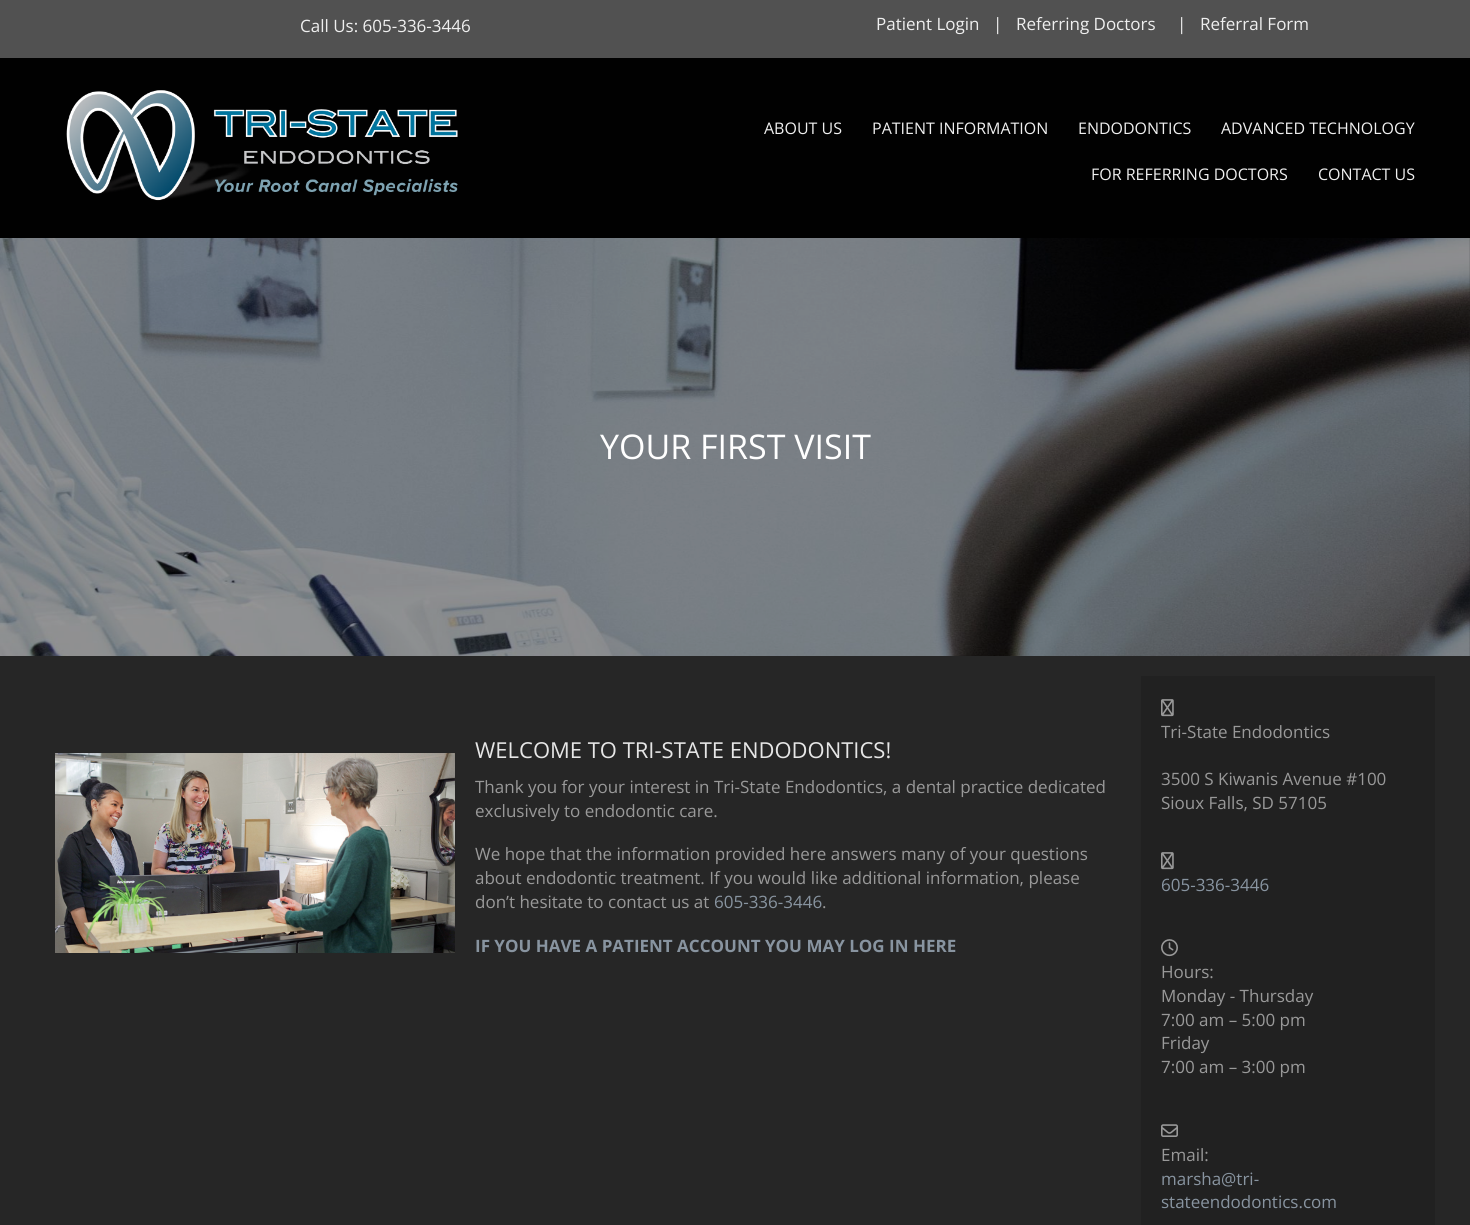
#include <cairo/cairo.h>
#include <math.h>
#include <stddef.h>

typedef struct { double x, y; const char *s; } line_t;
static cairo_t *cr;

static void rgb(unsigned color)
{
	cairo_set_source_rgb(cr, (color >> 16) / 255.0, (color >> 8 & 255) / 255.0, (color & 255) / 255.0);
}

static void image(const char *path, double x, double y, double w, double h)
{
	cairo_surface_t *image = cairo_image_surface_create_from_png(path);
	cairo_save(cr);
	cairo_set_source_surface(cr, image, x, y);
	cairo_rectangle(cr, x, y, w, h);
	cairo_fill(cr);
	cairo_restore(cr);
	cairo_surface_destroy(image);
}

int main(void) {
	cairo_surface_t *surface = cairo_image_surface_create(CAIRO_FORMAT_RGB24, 1470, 1225);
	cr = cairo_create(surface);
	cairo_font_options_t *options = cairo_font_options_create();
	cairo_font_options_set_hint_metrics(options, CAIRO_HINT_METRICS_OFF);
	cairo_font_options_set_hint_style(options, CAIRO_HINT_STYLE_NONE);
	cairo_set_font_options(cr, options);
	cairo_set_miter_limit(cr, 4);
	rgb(0x262626);
	cairo_paint(cr);
	rgb(0x515151);
	cairo_rectangle(cr, 0, 0, 1470, 58);
	cairo_fill(cr);
	rgb(0x010101);
	cairo_rectangle(cr, 0, 58, 1470, 180);
	cairo_fill(cr);
	image("img/1.png", 66, 90, 392, 111);
	image("img/2.png", 0, 238, 1470, 418);
	image("img/3.png", 55, 753, 400, 200);
	rgb(0x212121);
	cairo_rectangle(cr, 1141, 676, 294, 549);
	cairo_fill(cr);
	image("img/4.png", 1161, 699, 13, 18);
	image("img/4.png", 1161, 852, 13, 18);
	image("img/5.png", 1161, 939, 17, 18);
	image("img/6.png", 1161, 1124, 17, 13);
	cairo_select_font_face(cr, "Open Sans", CAIRO_FONT_SLANT_NORMAL, CAIRO_FONT_WEIGHT_NORMAL);
	cairo_set_font_size(cr, 17);
	rgb(0xefefef);
	{
		static const line_t items[] = {
			{300, 32, "Call Us: 605-336-3446"},
			{876, 30, "Patient Login"},
			{993, 30, "|"},
			{1016, 30, "Referring Doctors"},
			{1177, 30, "|"},
			{1200, 30, "Referral Form"},
		};
		for (size_t i = 0; i < sizeof items / sizeof *items; i++) {
			cairo_move_to(cr, items[i].x, items[i].y);
			cairo_show_text(cr, items[i].s);
		}
	}
	cairo_set_font_size(cr, 16);
	{
		static const line_t items[] = {
			{764, 134, "ABOUT US"},
			{872, 134, "PATIENT INFORMATION"},
			{1078, 134, "ENDODONTICS"},
			{1221, 134, "ADVANCED TECHNOLOGY"},
			{1091, 180, "FOR REFERRING DOCTORS"},
			{1318, 180, "CONTACT US"},
		};
		for (size_t i = 0; i < sizeof items / sizeof *items; i++) {
			cairo_move_to(cr, items[i].x, items[i].y);
			cairo_show_text(cr, items[i].s);
		}
	}
	cairo_set_font_size(cr, 34);
	rgb(0xffffff);
	cairo_move_to(cr, 600, 459);
	cairo_show_text(cr, "YOUR FIRST VISIT");
	cairo_set_font_size(cr, 22);
	rgb(0xe6e6e6);
	cairo_move_to(cr, 475, 758);
	cairo_show_text(cr, "WELCOME TO TRI-STATE ENDODONTICS!");
	cairo_set_font_size(cr, 17);
	rgb(0x999999);
	{
		static const line_t items[] = {
			{475, 793, "Thank you for your interest in Tri-State Endodontics, a dental practice dedicated"},
			{475, 817, "exclusively to endodontic care."},
			{475, 860, "We hope that the information provided here answers many of your questions"},
			{475, 884, "about endodontic treatment. If you would like additional information, please"},
			{475, 908, "don’t hesitate to contact us at"},
		};
		for (size_t i = 0; i < sizeof items / sizeof *items; i++) {
			cairo_move_to(cr, items[i].x, items[i].y);
			cairo_show_text(cr, items[i].s);
		}
	}
	rgb(0x8894a0);
	cairo_move_to(cr, 714, 908);
	cairo_show_text(cr, "605-336-3446");
	rgb(0x999999);
	cairo_move_to(cr, 822, 908);
	cairo_show_text(cr, ".");
	cairo_select_font_face(cr, "Open Sans", CAIRO_FONT_SLANT_NORMAL, CAIRO_FONT_WEIGHT_BOLD);
	rgb(0x8894a0);
	cairo_move_to(cr, 475, 952);
	cairo_show_text(cr, "IF YOU HAVE A PATIENT ACCOUNT YOU MAY LOG IN HERE");
	cairo_select_font_face(cr, "Open Sans", CAIRO_FONT_SLANT_NORMAL, CAIRO_FONT_WEIGHT_NORMAL);
	rgb(0x999999);
	{
		static const line_t items[] = {
			{1161, 738, "Tri-State Endodontics"},
			{1161, 785, "3500 S Kiwanis Avenue #100"},
			{1161, 809, "Sioux Falls, SD 57105"},
		};
		for (size_t i = 0; i < sizeof items / sizeof *items; i++) {
			cairo_move_to(cr, items[i].x, items[i].y);
			cairo_show_text(cr, items[i].s);
		}
	}
	rgb(0x8894a0);
	cairo_move_to(cr, 1161, 891);
	cairo_show_text(cr, "605-336-3446");
	rgb(0x999999);
	{
		static const line_t items[] = {
			{1161, 978, "Hours:"},
			{1161, 1002, "Monday - Thursday"},
			{1161, 1026, "7:00 am – 5:00 pm"},
			{1161, 1049, "Friday"},
			{1161, 1073, "7:00 am – 3:00 pm"},
			{1161, 1161, "Email:"},
		};
		for (size_t i = 0; i < sizeof items / sizeof *items; i++) {
			cairo_move_to(cr, items[i].x, items[i].y);
			cairo_show_text(cr, items[i].s);
		}
	}
	rgb(0x8894a0);
	cairo_move_to(cr, 1161, 1185);
	cairo_show_text(cr, "marsha@tri-");
	cairo_move_to(cr, 1161, 1208);
	cairo_show_text(cr, "stateendodontics.com");
	cairo_surface_write_to_png(surface, "page.png");
	cairo_font_options_destroy(options);
	cairo_destroy(cr);
	cairo_surface_destroy(surface);
	return 0;
}
